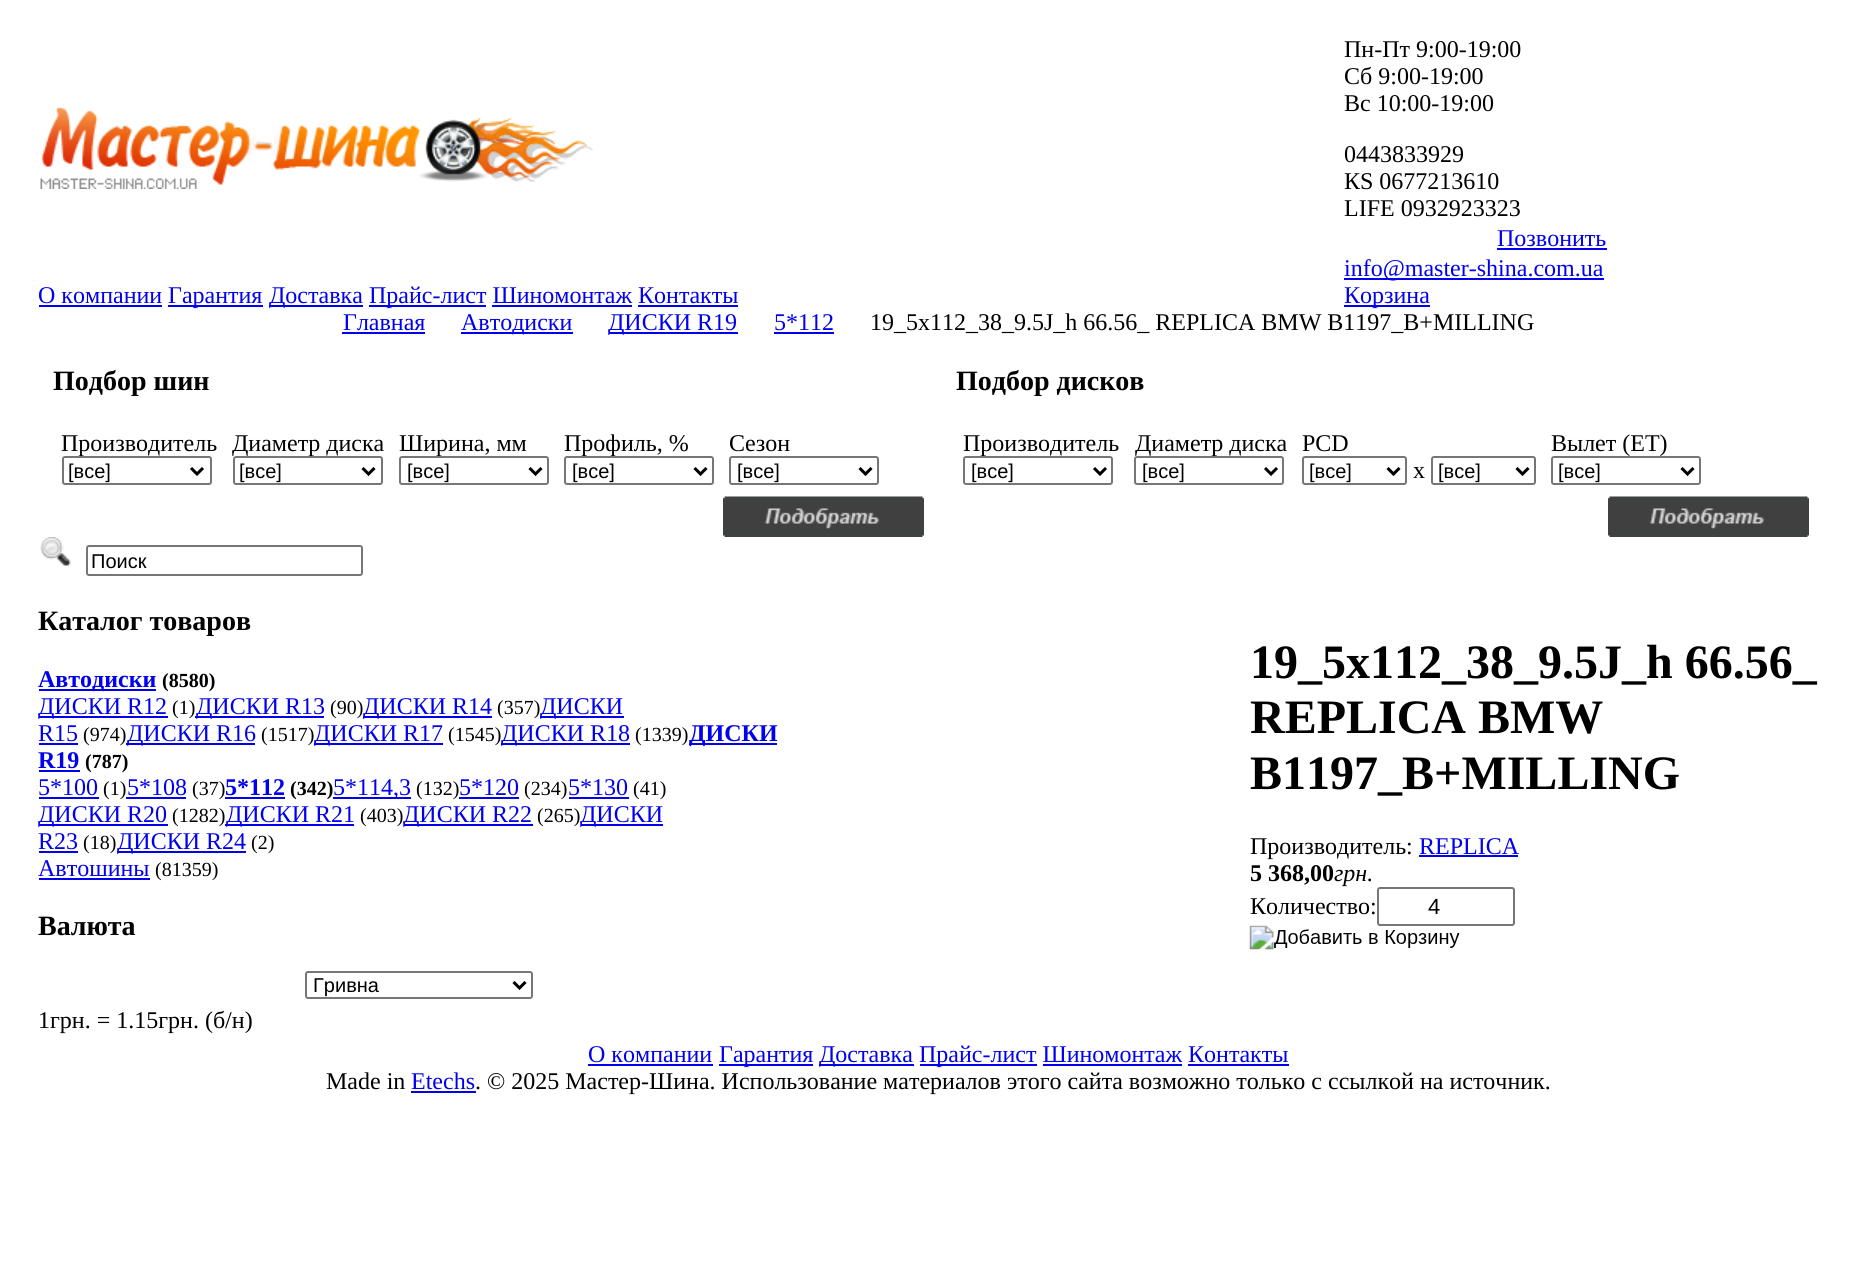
#include <cairo/cairo.h>
#include <math.h>
#include <stddef.h>

typedef struct { double x, y; const char *s; } line_t;
typedef struct { double x, y, w, h; unsigned color; } box_t;
static cairo_t *cr;

static void rgb(unsigned color)
{
	cairo_set_source_rgb(cr, (color >> 16) / 255.0, (color >> 8 & 255) / 255.0, (color & 255) / 255.0);
}

static void rrect(double x, double y, double w, double h, double r)
{
	cairo_new_sub_path(cr);
	cairo_arc(cr, x + w - r, y + h - r, r, 0, M_PI / 2);
	cairo_arc(cr, x + r, y + h - r, r, M_PI / 2, M_PI);
	cairo_arc(cr, x + r, y + r, r, M_PI, 1.5 * M_PI);
	cairo_arc(cr, x + w - r, y + r, r, 1.5 * M_PI, 2 * M_PI);
	cairo_close_path(cr);
}

static void image(const char *path, double x, double y, double w, double h)
{
	cairo_surface_t *image = cairo_image_surface_create_from_png(path);
	cairo_save(cr);
	cairo_set_source_surface(cr, image, x, y);
	cairo_rectangle(cr, x, y, w, h);
	cairo_fill(cr);
	cairo_restore(cr);
	cairo_surface_destroy(image);
}

int main(void) {
	cairo_surface_t *surface = cairo_image_surface_create(CAIRO_FORMAT_RGB24, 1876, 1270);
	cr = cairo_create(surface);
	cairo_font_options_t *options = cairo_font_options_create();
	cairo_font_options_set_hint_metrics(options, CAIRO_HINT_METRICS_OFF);
	cairo_font_options_set_hint_style(options, CAIRO_HINT_STYLE_NONE);
	cairo_set_font_options(cr, options);
	cairo_set_miter_limit(cr, 4);
	rgb(0xffffff);
	cairo_paint(cr);
	image("img/1.png", 40, 107, 553, 82);
	{
		static const box_t items[] = {
			{1497, 248, 110, 2, 0x0000ee},
			{1344, 278, 260, 2, 0x0000ee},
			{39, 305, 123, 2, 0x0000ee},
			{168, 305, 95, 2, 0x0000ee},
			{269, 305, 94, 2, 0x0000ee},
			{369, 305, 117, 2, 0x0000ee},
			{492, 305, 140, 2, 0x0000ee},
			{638, 305, 100, 2, 0x0000ee},
			{1344, 305, 86, 2, 0x0000ee},
			{342, 332, 83, 2, 0x0000ee},
			{461, 332, 112, 2, 0x0000ee},
			{609, 332, 129, 2, 0x0000ee},
			{774, 332, 60, 2, 0x0000ee},
		};
		for (size_t i = 0; i < sizeof items / sizeof *items; i++) {
			rgb(items[i].color);
			cairo_rectangle(cr, items[i].x, items[i].y, items[i].w, items[i].h);
			cairo_fill(cr);
		}
	}
	rrect(730, 457, 148, 27, 2);
	rgb(0x767676);
	cairo_stroke(cr);
	cairo_new_path(cr);
	cairo_move_to(cr, 859.5, 468);
	cairo_line_to(cr, 865.5, 474);
	cairo_line_to(cr, 871.5, 468);
	rgb(0x000000);
	cairo_set_line_width(cr, 3);
	cairo_stroke(cr);
	image("img/2.png", 723, 496, 201, 41);
	rrect(1303, 457, 103, 27, 2);
	rgb(0x767676);
	cairo_set_line_width(cr, 2);
	cairo_stroke(cr);
	cairo_new_path(cr);
	cairo_move_to(cr, 1387.5, 468);
	cairo_line_to(cr, 1393.5, 474);
	cairo_line_to(cr, 1399.5, 468);
	rgb(0x000000);
	cairo_set_line_width(cr, 3);
	cairo_stroke(cr);
	rrect(1432, 457, 103, 27, 2);
	rgb(0x767676);
	cairo_set_line_width(cr, 2);
	cairo_stroke(cr);
	cairo_new_path(cr);
	cairo_move_to(cr, 1516.5, 468);
	cairo_line_to(cr, 1522.5, 474);
	cairo_line_to(cr, 1528.5, 468);
	rgb(0x000000);
	cairo_set_line_width(cr, 3);
	cairo_stroke(cr);
	image("img/3.png", 1608, 496, 201, 41);
	image("img/4.png", 40, 537, 31, 29);
	rrect(87, 546, 275, 29, 2);
	rgb(0x767676);
	cairo_set_line_width(cr, 2);
	cairo_stroke(cr);
	{
		static const box_t items[] = {
			{39, 689, 117, 2, 0x0000ee},
			{39, 716, 129, 2, 0x0000ee},
			{195, 716, 129, 2, 0x0000ee},
			{363, 716, 129, 2, 0x0000ee},
			{540, 716, 84, 2, 0x0000ee},
			{39, 743, 39, 2, 0x0000ee},
			{126, 743, 129, 2, 0x0000ee},
			{314, 743, 129, 2, 0x0000ee},
			{501, 743, 129, 2, 0x0000ee},
			{689, 743, 88, 2, 0x0000ee},
			{39, 770, 41, 2, 0x0000ee},
			{39, 797, 60, 2, 0x0000ee},
			{126, 797, 60, 2, 0x0000ee},
			{225, 797, 60, 2, 0x0000ee},
			{333, 797, 78, 2, 0x0000ee},
			{459, 797, 60, 2, 0x0000ee},
			{569, 797, 60, 2, 0x0000ee},
			{39, 824, 129, 2, 0x0000ee},
			{225, 824, 129, 2, 0x0000ee},
			{404, 824, 129, 2, 0x0000ee},
			{581, 824, 82, 2, 0x0000ee},
			{39, 851, 39, 2, 0x0000ee},
			{117, 851, 129, 2, 0x0000ee},
			{39, 878, 111, 2, 0x0000ee},
		};
		for (size_t i = 0; i < sizeof items / sizeof *items; i++) {
			rgb(items[i].color);
			cairo_rectangle(cr, items[i].x, items[i].y, items[i].w, items[i].h);
			cairo_fill(cr);
		}
	}
	rrect(306, 972, 226, 26, 2);
	rgb(0x767676);
	cairo_stroke(cr);
	cairo_new_path(cr);
	cairo_move_to(cr, 513.5, 982);
	cairo_line_to(cr, 519.5, 988);
	cairo_line_to(cr, 525.5, 982);
	rgb(0x000000);
	cairo_set_line_width(cr, 3);
	cairo_stroke(cr);
	rgb(0x0000ee);
	cairo_rectangle(cr, 1419, 855, 99, 2);
	cairo_fill(cr);
	rrect(1378, 888, 136, 37, 2);
	rgb(0x767676);
	cairo_set_line_width(cr, 2);
	cairo_stroke(cr);
	image("img/5.png", 1249, 925, 211, 25);
	{
		static const box_t items[] = {
			{588, 1064, 125, 2, 0x0000ee},
			{719, 1064, 94, 2, 0x0000ee},
			{819, 1064, 95, 2, 0x0000ee},
			{920, 1064, 117, 2, 0x0000ee},
			{1043, 1064, 139, 2, 0x0000ee},
			{1188, 1064, 101, 2, 0x0000ee},
			{411, 1091, 65, 2, 0x0000ee},
		};
		for (size_t i = 0; i < sizeof items / sizeof *items; i++) {
			rgb(items[i].color);
			cairo_rectangle(cr, items[i].x, items[i].y, items[i].w, items[i].h);
			cairo_fill(cr);
		}
	}
	cairo_select_font_face(cr, "Liberation Serif", CAIRO_FONT_SLANT_NORMAL, CAIRO_FONT_WEIGHT_NORMAL);
	cairo_set_font_size(cr, 24);
	rgb(0x000000);
	{
		static const line_t items[] = {
			{1344, 57, "Пн-Пт 9:00-19:00"},
			{1344, 84, "Сб 9:00-19:00"},
			{1344, 111, "Вс 10:00-19:00"},
			{1344, 162, "0443833929"},
			{1344, 189, "КS 0677213610"},
			{1344, 216, "LIFE 0932923323"},
		};
		for (size_t i = 0; i < sizeof items / sizeof *items; i++) {
			cairo_move_to(cr, items[i].x, items[i].y);
			cairo_show_text(cr, items[i].s);
		}
	}
	rgb(0x0000ee);
	{
		static const line_t items[] = {
			{1497, 246, "Позвонить"},
			{1344, 276, "info@master-shina.com.ua"},
			{38, 303, "О компании"},
			{168, 303, "Гарантия"},
			{269, 303, "Доставка"},
			{369, 303, "Прайс-лист Шиномонтаж Контакты"},
			{1344, 303, "Корзина"},
			{343, 330, "Главная"},
			{461, 330, "Автодиски"},
			{608, 330, "ДИСКИ R19"},
			{774, 330, "5*112"},
		};
		for (size_t i = 0; i < sizeof items / sizeof *items; i++) {
			cairo_move_to(cr, items[i].x, items[i].y);
			cairo_show_text(cr, items[i].s);
		}
	}
	rgb(0x000000);
	cairo_move_to(cr, 870, 330);
	cairo_show_text(cr, "19_5x112_38_9.5J_h 66.56_ REPLICA BMW B1197_B+MILLING");
	cairo_select_font_face(cr, "Liberation Serif", CAIRO_FONT_SLANT_NORMAL, CAIRO_FONT_WEIGHT_BOLD);
	cairo_set_font_size(cr, 28);
	cairo_move_to(cr, 53, 390);
	cairo_show_text(cr, "Подбор шин");
	cairo_select_font_face(cr, "Liberation Serif", CAIRO_FONT_SLANT_NORMAL, CAIRO_FONT_WEIGHT_NORMAL);
	cairo_set_font_size(cr, 24);
	cairo_move_to(cr, 61, 451);
	cairo_show_text(cr, "Производитель");
	rgb(0xffffff);
	rrect(63, 457, 148, 27, 2);
	cairo_fill_preserve(cr);
	rgb(0x767676);
	cairo_stroke(cr);
	cairo_new_path(cr);
	cairo_move_to(cr, 191, 468);
	cairo_line_to(cr, 197, 474);
	cairo_line_to(cr, 203, 468);
	rgb(0x000000);
	cairo_set_line_width(cr, 3);
	cairo_stroke(cr);
	cairo_select_font_face(cr, "Liberation Sans", CAIRO_FONT_SLANT_NORMAL, CAIRO_FONT_WEIGHT_NORMAL);
	cairo_set_font_size(cr, 20);
	cairo_move_to(cr, 68, 478);
	cairo_show_text(cr, "[все]");
	cairo_select_font_face(cr, "Liberation Serif", CAIRO_FONT_SLANT_NORMAL, CAIRO_FONT_WEIGHT_NORMAL);
	cairo_set_font_size(cr, 24);
	cairo_move_to(cr, 232, 451);
	cairo_show_text(cr, "Диаметр диска");
	rgb(0xffffff);
	rrect(234, 457, 148, 27, 2);
	cairo_fill_preserve(cr);
	rgb(0x767676);
	cairo_set_line_width(cr, 2);
	cairo_stroke(cr);
	cairo_new_path(cr);
	cairo_move_to(cr, 362.5, 468);
	cairo_line_to(cr, 368.5, 474);
	cairo_line_to(cr, 374.5, 468);
	rgb(0x000000);
	cairo_set_line_width(cr, 3);
	cairo_stroke(cr);
	cairo_select_font_face(cr, "Liberation Sans", CAIRO_FONT_SLANT_NORMAL, CAIRO_FONT_WEIGHT_NORMAL);
	cairo_set_font_size(cr, 20);
	cairo_move_to(cr, 239, 478);
	cairo_show_text(cr, "[все]");
	cairo_select_font_face(cr, "Liberation Serif", CAIRO_FONT_SLANT_NORMAL, CAIRO_FONT_WEIGHT_NORMAL);
	cairo_set_font_size(cr, 24);
	cairo_move_to(cr, 399, 451);
	cairo_show_text(cr, "Ширина, мм");
	rgb(0xffffff);
	rrect(400, 457, 148, 27, 2);
	cairo_fill_preserve(cr);
	rgb(0x767676);
	cairo_set_line_width(cr, 2);
	cairo_stroke(cr);
	cairo_new_path(cr);
	cairo_move_to(cr, 529.5, 468);
	cairo_line_to(cr, 535.5, 474);
	cairo_line_to(cr, 541.5, 468);
	rgb(0x000000);
	cairo_set_line_width(cr, 3);
	cairo_stroke(cr);
	cairo_select_font_face(cr, "Liberation Sans", CAIRO_FONT_SLANT_NORMAL, CAIRO_FONT_WEIGHT_NORMAL);
	cairo_set_font_size(cr, 20);
	cairo_move_to(cr, 407, 478);
	cairo_show_text(cr, "[все]");
	cairo_select_font_face(cr, "Liberation Serif", CAIRO_FONT_SLANT_NORMAL, CAIRO_FONT_WEIGHT_NORMAL);
	cairo_set_font_size(cr, 24);
	cairo_move_to(cr, 564, 451);
	cairo_show_text(cr, "Профиль, %");
	rgb(0xffffff);
	rrect(565, 457, 148, 27, 2);
	cairo_fill_preserve(cr);
	rgb(0x767676);
	cairo_set_line_width(cr, 2);
	cairo_stroke(cr);
	cairo_new_path(cr);
	cairo_move_to(cr, 694.5, 468);
	cairo_line_to(cr, 700.5, 474);
	cairo_line_to(cr, 706.5, 468);
	rgb(0x000000);
	cairo_set_line_width(cr, 3);
	cairo_stroke(cr);
	cairo_select_font_face(cr, "Liberation Sans", CAIRO_FONT_SLANT_NORMAL, CAIRO_FONT_WEIGHT_NORMAL);
	cairo_set_font_size(cr, 20);
	cairo_move_to(cr, 572, 478);
	cairo_show_text(cr, "[все]");
	cairo_select_font_face(cr, "Liberation Serif", CAIRO_FONT_SLANT_NORMAL, CAIRO_FONT_WEIGHT_NORMAL);
	cairo_set_font_size(cr, 24);
	cairo_move_to(cr, 729, 451);
	cairo_show_text(cr, "Сезон");
	cairo_select_font_face(cr, "Liberation Sans", CAIRO_FONT_SLANT_NORMAL, CAIRO_FONT_WEIGHT_NORMAL);
	cairo_set_font_size(cr, 20);
	cairo_move_to(cr, 737, 478);
	cairo_show_text(cr, "[все]");
	cairo_select_font_face(cr, "Liberation Serif", CAIRO_FONT_SLANT_NORMAL, CAIRO_FONT_WEIGHT_BOLD);
	cairo_set_font_size(cr, 28);
	cairo_move_to(cr, 956, 390);
	cairo_show_text(cr, "Подбор дисков");
	cairo_select_font_face(cr, "Liberation Serif", CAIRO_FONT_SLANT_NORMAL, CAIRO_FONT_WEIGHT_NORMAL);
	cairo_set_font_size(cr, 24);
	cairo_move_to(cr, 963, 451);
	cairo_show_text(cr, "Производитель");
	rgb(0xffffff);
	rrect(964, 457, 148, 27, 2);
	cairo_fill_preserve(cr);
	rgb(0x767676);
	cairo_set_line_width(cr, 2);
	cairo_stroke(cr);
	cairo_new_path(cr);
	cairo_move_to(cr, 1094, 468);
	cairo_line_to(cr, 1100, 474);
	cairo_line_to(cr, 1106, 468);
	rgb(0x000000);
	cairo_set_line_width(cr, 3);
	cairo_stroke(cr);
	cairo_select_font_face(cr, "Liberation Sans", CAIRO_FONT_SLANT_NORMAL, CAIRO_FONT_WEIGHT_NORMAL);
	cairo_set_font_size(cr, 20);
	cairo_move_to(cr, 971, 478);
	cairo_show_text(cr, "[все]");
	cairo_select_font_face(cr, "Liberation Serif", CAIRO_FONT_SLANT_NORMAL, CAIRO_FONT_WEIGHT_NORMAL);
	cairo_set_font_size(cr, 24);
	cairo_move_to(cr, 1135, 451);
	cairo_show_text(cr, "Диаметр диска");
	rgb(0xffffff);
	rrect(1135, 457, 148, 27, 2);
	cairo_fill_preserve(cr);
	rgb(0x767676);
	cairo_set_line_width(cr, 2);
	cairo_stroke(cr);
	cairo_new_path(cr);
	cairo_move_to(cr, 1265, 468);
	cairo_line_to(cr, 1271, 474);
	cairo_line_to(cr, 1277, 468);
	rgb(0x000000);
	cairo_set_line_width(cr, 3);
	cairo_stroke(cr);
	cairo_select_font_face(cr, "Liberation Sans", CAIRO_FONT_SLANT_NORMAL, CAIRO_FONT_WEIGHT_NORMAL);
	cairo_set_font_size(cr, 20);
	cairo_move_to(cr, 1142, 478);
	cairo_show_text(cr, "[все]");
	cairo_select_font_face(cr, "Liberation Serif", CAIRO_FONT_SLANT_NORMAL, CAIRO_FONT_WEIGHT_NORMAL);
	cairo_set_font_size(cr, 24);
	cairo_move_to(cr, 1302, 451);
	cairo_show_text(cr, "PCD");
	cairo_select_font_face(cr, "Liberation Sans", CAIRO_FONT_SLANT_NORMAL, CAIRO_FONT_WEIGHT_NORMAL);
	cairo_set_font_size(cr, 20);
	cairo_move_to(cr, 1309, 478);
	cairo_show_text(cr, "[все]");
	cairo_select_font_face(cr, "Liberation Serif", CAIRO_FONT_SLANT_NORMAL, CAIRO_FONT_WEIGHT_NORMAL);
	cairo_set_font_size(cr, 24);
	cairo_move_to(cr, 1413, 478);
	cairo_show_text(cr, "x");
	cairo_select_font_face(cr, "Liberation Sans", CAIRO_FONT_SLANT_NORMAL, CAIRO_FONT_WEIGHT_NORMAL);
	cairo_set_font_size(cr, 20);
	cairo_move_to(cr, 1438, 478);
	cairo_show_text(cr, "[все]");
	cairo_select_font_face(cr, "Liberation Serif", CAIRO_FONT_SLANT_NORMAL, CAIRO_FONT_WEIGHT_NORMAL);
	cairo_set_font_size(cr, 24);
	cairo_move_to(cr, 1551, 451);
	cairo_show_text(cr, "Вылет (ET)");
	rrect(1552, 457, 148, 27, 2);
	rgb(0x767676);
	cairo_set_line_width(cr, 2);
	cairo_stroke(cr);
	cairo_new_path(cr);
	cairo_move_to(cr, 1681.5, 468);
	cairo_line_to(cr, 1687.5, 474);
	cairo_line_to(cr, 1693.5, 468);
	rgb(0x000000);
	cairo_set_line_width(cr, 3);
	cairo_stroke(cr);
	cairo_select_font_face(cr, "Liberation Sans", CAIRO_FONT_SLANT_NORMAL, CAIRO_FONT_WEIGHT_NORMAL);
	cairo_set_font_size(cr, 20);
	cairo_move_to(cr, 1558, 478);
	cairo_show_text(cr, "[все]");
	cairo_move_to(cr, 91, 568);
	cairo_show_text(cr, "Поиск");
	cairo_select_font_face(cr, "Liberation Serif", CAIRO_FONT_SLANT_NORMAL, CAIRO_FONT_WEIGHT_BOLD);
	cairo_set_font_size(cr, 28);
	cairo_move_to(cr, 38, 630);
	cairo_show_text(cr, "Каталог товаров");
	cairo_set_font_size(cr, 24);
	rgb(0x0000ee);
	cairo_move_to(cr, 38, 687);
	cairo_show_text(cr, "Автодиски");
	cairo_set_font_size(cr, 20);
	rgb(0x000000);
	cairo_move_to(cr, 162, 687);
	cairo_show_text(cr, "(8580)");
	cairo_select_font_face(cr, "Liberation Serif", CAIRO_FONT_SLANT_NORMAL, CAIRO_FONT_WEIGHT_NORMAL);
	cairo_set_font_size(cr, 24);
	rgb(0x0000ee);
	cairo_move_to(cr, 38, 714);
	cairo_show_text(cr, "ДИСКИ R12");
	cairo_set_font_size(cr, 20);
	rgb(0x000000);
	cairo_move_to(cr, 172, 714);
	cairo_show_text(cr, "(1)");
	cairo_set_font_size(cr, 24);
	rgb(0x0000ee);
	cairo_move_to(cr, 196, 714);
	cairo_show_text(cr, "ДИСКИ R13");
	cairo_set_font_size(cr, 20);
	rgb(0x000000);
	cairo_move_to(cr, 330, 714);
	cairo_show_text(cr, "(90)");
	cairo_set_font_size(cr, 24);
	rgb(0x0000ee);
	cairo_move_to(cr, 363, 714);
	cairo_show_text(cr, "ДИСКИ R14");
	cairo_set_font_size(cr, 20);
	rgb(0x000000);
	cairo_move_to(cr, 497, 714);
	cairo_show_text(cr, "(357)");
	cairo_set_font_size(cr, 24);
	rgb(0x0000ee);
	cairo_move_to(cr, 540, 714);
	cairo_show_text(cr, "ДИСКИ");
	cairo_move_to(cr, 38, 741);
	cairo_show_text(cr, "R15");
	cairo_set_font_size(cr, 20);
	rgb(0x000000);
	cairo_move_to(cr, 83, 741);
	cairo_show_text(cr, "(974)");
	cairo_set_font_size(cr, 24);
	rgb(0x0000ee);
	cairo_move_to(cr, 127, 741);
	cairo_show_text(cr, "ДИСКИ R16");
	cairo_set_font_size(cr, 20);
	rgb(0x000000);
	cairo_move_to(cr, 261, 741);
	cairo_show_text(cr, "(1517)");
	cairo_set_font_size(cr, 24);
	rgb(0x0000ee);
	cairo_move_to(cr, 314, 741);
	cairo_show_text(cr, "ДИСКИ R17");
	cairo_set_font_size(cr, 20);
	rgb(0x000000);
	cairo_move_to(cr, 448, 741);
	cairo_show_text(cr, "(1545)");
	cairo_set_font_size(cr, 24);
	rgb(0x0000ee);
	cairo_move_to(cr, 501, 741);
	cairo_show_text(cr, "ДИСКИ R18");
	cairo_set_font_size(cr, 20);
	rgb(0x000000);
	cairo_move_to(cr, 635, 741);
	cairo_show_text(cr, "(1339)");
	cairo_select_font_face(cr, "Liberation Serif", CAIRO_FONT_SLANT_NORMAL, CAIRO_FONT_WEIGHT_BOLD);
	cairo_set_font_size(cr, 24);
	rgb(0x0000ee);
	cairo_move_to(cr, 689, 741);
	cairo_show_text(cr, "ДИСКИ");
	cairo_move_to(cr, 38, 768);
	cairo_show_text(cr, "R19");
	cairo_set_font_size(cr, 20);
	rgb(0x000000);
	cairo_move_to(cr, 85, 768);
	cairo_show_text(cr, "(787)");
	cairo_select_font_face(cr, "Liberation Serif", CAIRO_FONT_SLANT_NORMAL, CAIRO_FONT_WEIGHT_NORMAL);
	cairo_set_font_size(cr, 24);
	rgb(0x0000ee);
	cairo_move_to(cr, 38, 795);
	cairo_show_text(cr, "5*100");
	cairo_set_font_size(cr, 20);
	rgb(0x000000);
	cairo_move_to(cr, 103, 795);
	cairo_show_text(cr, "(1)");
	cairo_set_font_size(cr, 24);
	rgb(0x0000ee);
	cairo_move_to(cr, 127, 795);
	cairo_show_text(cr, "5*108");
	cairo_set_font_size(cr, 20);
	rgb(0x000000);
	cairo_move_to(cr, 192, 795);
	cairo_show_text(cr, "(37)");
	cairo_select_font_face(cr, "Liberation Serif", CAIRO_FONT_SLANT_NORMAL, CAIRO_FONT_WEIGHT_BOLD);
	cairo_set_font_size(cr, 24);
	rgb(0x0000ee);
	cairo_move_to(cr, 225, 795);
	cairo_show_text(cr, "5*112");
	cairo_set_font_size(cr, 20);
	rgb(0x000000);
	cairo_move_to(cr, 290, 795);
	cairo_show_text(cr, "(342)");
	cairo_select_font_face(cr, "Liberation Serif", CAIRO_FONT_SLANT_NORMAL, CAIRO_FONT_WEIGHT_NORMAL);
	cairo_set_font_size(cr, 24);
	rgb(0x0000ee);
	cairo_move_to(cr, 333, 795);
	cairo_show_text(cr, "5*114,3");
	cairo_set_font_size(cr, 20);
	rgb(0x000000);
	cairo_move_to(cr, 416, 795);
	cairo_show_text(cr, "(132)");
	cairo_set_font_size(cr, 24);
	rgb(0x0000ee);
	cairo_move_to(cr, 459, 795);
	cairo_show_text(cr, "5*120");
	cairo_set_font_size(cr, 20);
	rgb(0x000000);
	cairo_move_to(cr, 524, 795);
	cairo_show_text(cr, "(234)");
	cairo_set_font_size(cr, 24);
	rgb(0x0000ee);
	cairo_move_to(cr, 568, 795);
	cairo_show_text(cr, "5*130");
	cairo_set_font_size(cr, 20);
	rgb(0x000000);
	cairo_move_to(cr, 633, 795);
	cairo_show_text(cr, "(41)");
	cairo_set_font_size(cr, 24);
	rgb(0x0000ee);
	cairo_move_to(cr, 38, 822);
	cairo_show_text(cr, "ДИСКИ R20");
	cairo_set_font_size(cr, 20);
	rgb(0x000000);
	cairo_move_to(cr, 172, 822);
	cairo_show_text(cr, "(1282)");
	cairo_set_font_size(cr, 24);
	rgb(0x0000ee);
	cairo_move_to(cr, 226, 822);
	cairo_show_text(cr, "ДИСКИ R21");
	cairo_set_font_size(cr, 20);
	rgb(0x000000);
	cairo_move_to(cr, 360, 822);
	cairo_show_text(cr, "(403)");
	cairo_set_font_size(cr, 24);
	rgb(0x0000ee);
	cairo_move_to(cr, 403, 822);
	cairo_show_text(cr, "ДИСКИ R22");
	cairo_set_font_size(cr, 20);
	rgb(0x000000);
	cairo_move_to(cr, 537, 822);
	cairo_show_text(cr, "(265)");
	cairo_set_font_size(cr, 24);
	rgb(0x0000ee);
	cairo_move_to(cr, 580, 822);
	cairo_show_text(cr, "ДИСКИ");
	cairo_move_to(cr, 38, 849);
	cairo_show_text(cr, "R23");
	cairo_set_font_size(cr, 20);
	rgb(0x000000);
	cairo_move_to(cr, 83, 849);
	cairo_show_text(cr, "(18)");
	cairo_set_font_size(cr, 24);
	rgb(0x0000ee);
	cairo_move_to(cr, 117, 849);
	cairo_show_text(cr, "ДИСКИ R24");
	cairo_set_font_size(cr, 20);
	rgb(0x000000);
	cairo_move_to(cr, 251, 849);
	cairo_show_text(cr, "(2)");
	cairo_set_font_size(cr, 24);
	rgb(0x0000ee);
	cairo_move_to(cr, 38, 876);
	cairo_show_text(cr, "Автошины");
	cairo_set_font_size(cr, 20);
	rgb(0x000000);
	cairo_move_to(cr, 155, 876);
	cairo_show_text(cr, "(81359)");
	cairo_select_font_face(cr, "Liberation Serif", CAIRO_FONT_SLANT_NORMAL, CAIRO_FONT_WEIGHT_BOLD);
	cairo_set_font_size(cr, 28);
	cairo_move_to(cr, 38, 935);
	cairo_show_text(cr, "Валюта");
	cairo_select_font_face(cr, "Liberation Sans", CAIRO_FONT_SLANT_NORMAL, CAIRO_FONT_WEIGHT_NORMAL);
	cairo_set_font_size(cr, 20);
	cairo_move_to(cr, 313, 992);
	cairo_show_text(cr, "Гривна");
	cairo_select_font_face(cr, "Liberation Serif", CAIRO_FONT_SLANT_NORMAL, CAIRO_FONT_WEIGHT_NORMAL);
	cairo_set_font_size(cr, 24);
	cairo_move_to(cr, 38, 1028);
	cairo_show_text(cr, "1грн. = 1.15грн. (б/н)");
	cairo_select_font_face(cr, "Liberation Serif", CAIRO_FONT_SLANT_NORMAL, CAIRO_FONT_WEIGHT_BOLD);
	cairo_set_font_size(cr, 48);
	{
		static const line_t items[] = {
			{1250, 678, "19_5x112_38_9.5J_h 66.56_"},
			{1250, 733, "REPLICA BMW"},
			{1250, 789, "B1197_B+MILLING"},
		};
		for (size_t i = 0; i < sizeof items / sizeof *items; i++) {
			cairo_move_to(cr, items[i].x, items[i].y);
			cairo_show_text(cr, items[i].s);
		}
	}
	cairo_select_font_face(cr, "Liberation Serif", CAIRO_FONT_SLANT_NORMAL, CAIRO_FONT_WEIGHT_NORMAL);
	cairo_set_font_size(cr, 24);
	cairo_move_to(cr, 1250, 854);
	cairo_show_text(cr, "Производитель:");
	rgb(0x0000ee);
	cairo_move_to(cr, 1419, 854);
	cairo_show_text(cr, "REPLICA");
	cairo_select_font_face(cr, "Liberation Serif", CAIRO_FONT_SLANT_NORMAL, CAIRO_FONT_WEIGHT_BOLD);
	rgb(0x000000);
	cairo_move_to(cr, 1250, 881);
	cairo_show_text(cr, "5 368,00");
	cairo_select_font_face(cr, "Liberation Serif", CAIRO_FONT_SLANT_ITALIC, CAIRO_FONT_WEIGHT_NORMAL);
	cairo_move_to(cr, 1334, 881);
	cairo_show_text(cr, "грн.");
	cairo_select_font_face(cr, "Liberation Serif", CAIRO_FONT_SLANT_NORMAL, CAIRO_FONT_WEIGHT_NORMAL);
	cairo_move_to(cr, 1250, 914);
	cairo_show_text(cr, "Количество:");
	cairo_select_font_face(cr, "Liberation Sans", CAIRO_FONT_SLANT_NORMAL, CAIRO_FONT_WEIGHT_NORMAL);
	cairo_set_font_size(cr, 22);
	cairo_move_to(cr, 1428, 914);
	cairo_show_text(cr, "4");
	cairo_select_font_face(cr, "Liberation Serif", CAIRO_FONT_SLANT_NORMAL, CAIRO_FONT_WEIGHT_NORMAL);
	cairo_set_font_size(cr, 24);
	rgb(0x0000ee);
	{
		static const line_t items[] = {
			{588, 1062, "О компании"},
			{719, 1062, "Гарантия"},
			{819, 1062, "Доставка"},
			{919, 1062, "Прайс-лист Шиномонтаж Контакты"},
		};
		for (size_t i = 0; i < sizeof items / sizeof *items; i++) {
			cairo_move_to(cr, items[i].x, items[i].y);
			cairo_show_text(cr, items[i].s);
		}
	}
	rgb(0x000000);
	cairo_move_to(cr, 326, 1089);
	cairo_show_text(cr, "Made in");
	rgb(0x0000ee);
	cairo_move_to(cr, 411, 1089);
	cairo_show_text(cr, "Etechs");
	rgb(0x000000);
	cairo_move_to(cr, 475, 1089);
	cairo_show_text(cr, ". © 2025 Мастер-Шина. Использование материалов этого сайта возможно только с ссылкой на источник.");
	cairo_surface_write_to_png(surface, "page.png");
	cairo_font_options_destroy(options);
	cairo_destroy(cr);
	cairo_surface_destroy(surface);
	return 0;
}
